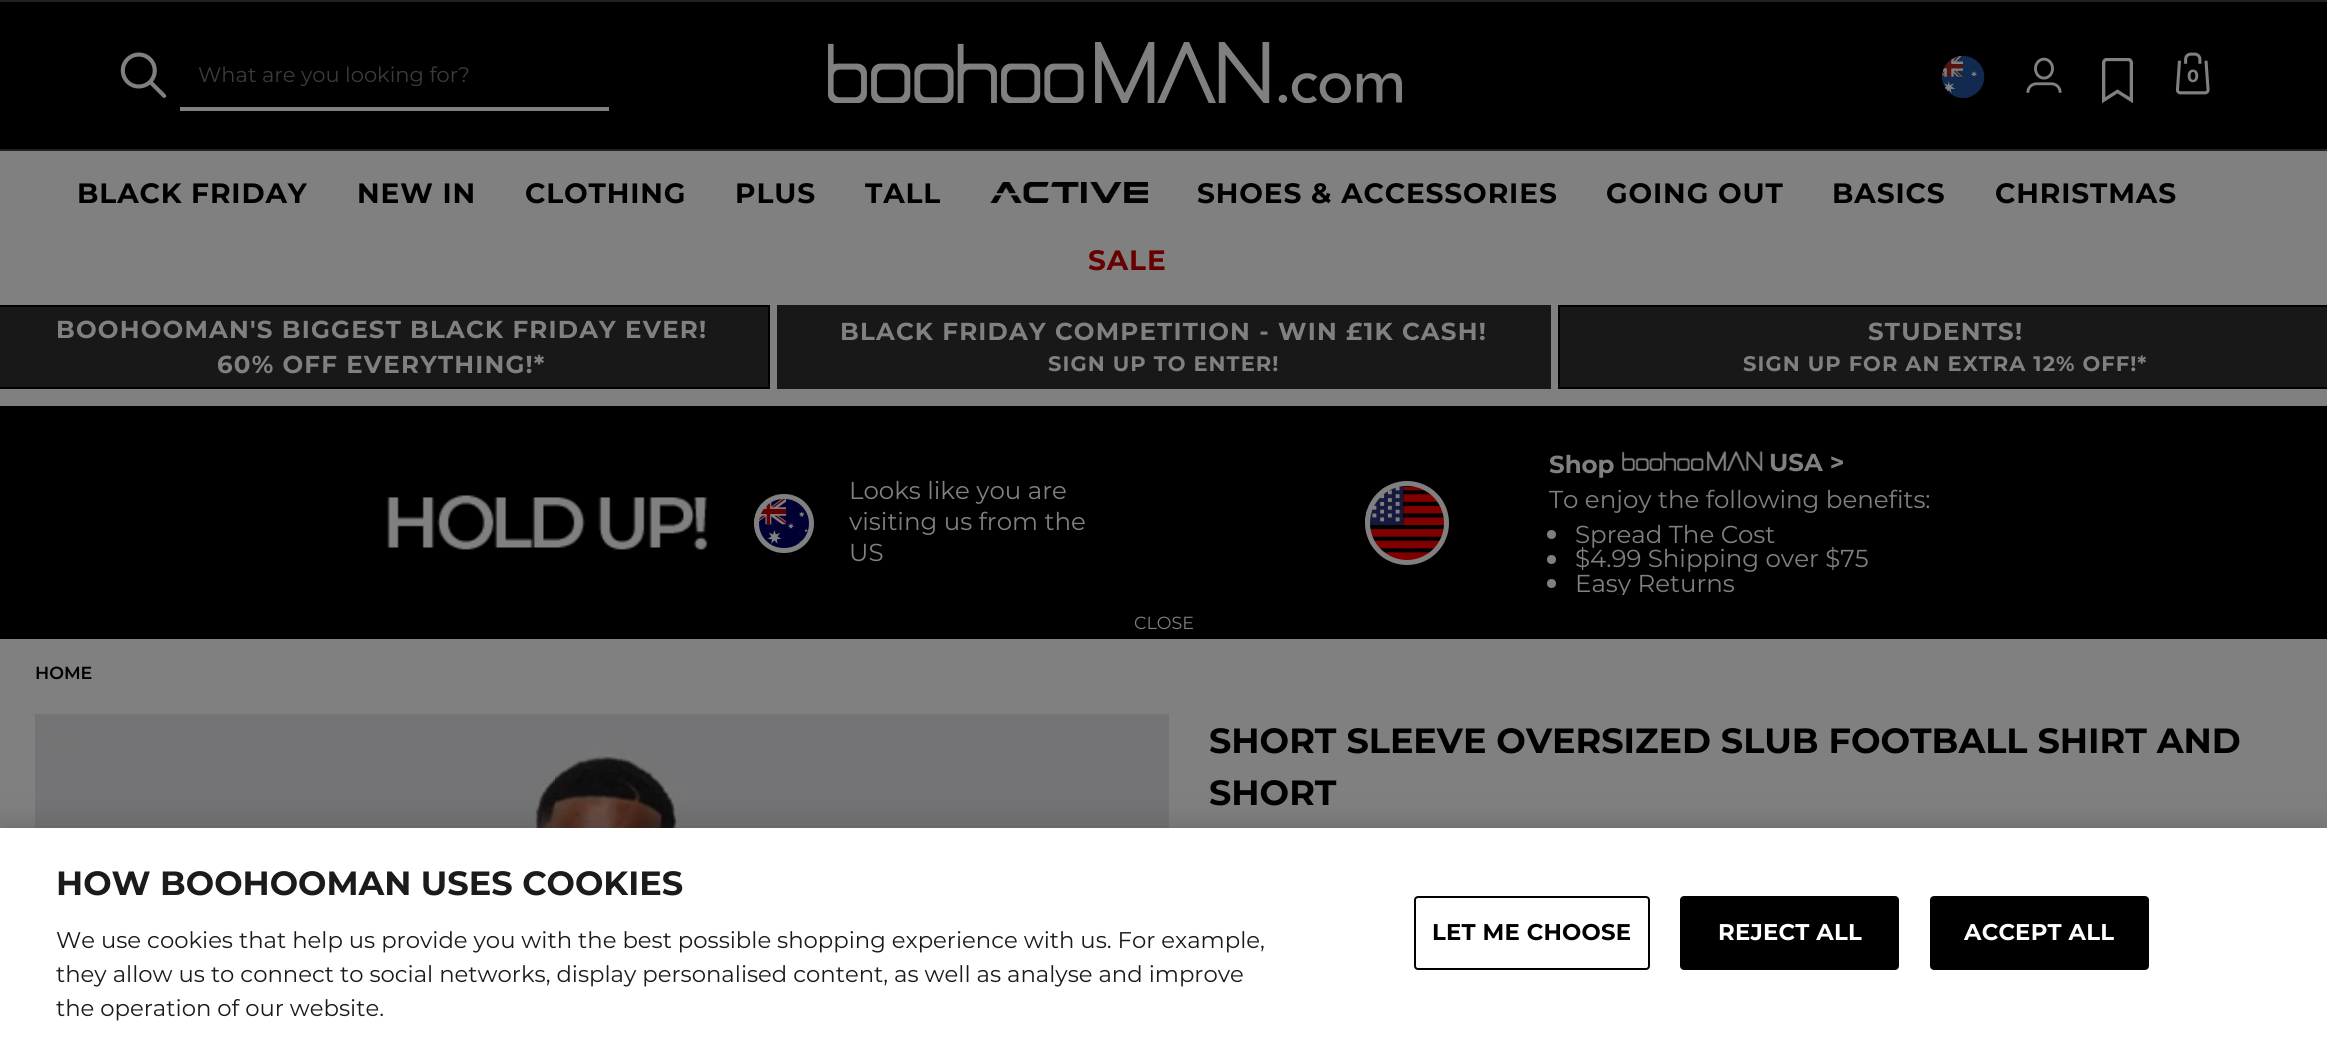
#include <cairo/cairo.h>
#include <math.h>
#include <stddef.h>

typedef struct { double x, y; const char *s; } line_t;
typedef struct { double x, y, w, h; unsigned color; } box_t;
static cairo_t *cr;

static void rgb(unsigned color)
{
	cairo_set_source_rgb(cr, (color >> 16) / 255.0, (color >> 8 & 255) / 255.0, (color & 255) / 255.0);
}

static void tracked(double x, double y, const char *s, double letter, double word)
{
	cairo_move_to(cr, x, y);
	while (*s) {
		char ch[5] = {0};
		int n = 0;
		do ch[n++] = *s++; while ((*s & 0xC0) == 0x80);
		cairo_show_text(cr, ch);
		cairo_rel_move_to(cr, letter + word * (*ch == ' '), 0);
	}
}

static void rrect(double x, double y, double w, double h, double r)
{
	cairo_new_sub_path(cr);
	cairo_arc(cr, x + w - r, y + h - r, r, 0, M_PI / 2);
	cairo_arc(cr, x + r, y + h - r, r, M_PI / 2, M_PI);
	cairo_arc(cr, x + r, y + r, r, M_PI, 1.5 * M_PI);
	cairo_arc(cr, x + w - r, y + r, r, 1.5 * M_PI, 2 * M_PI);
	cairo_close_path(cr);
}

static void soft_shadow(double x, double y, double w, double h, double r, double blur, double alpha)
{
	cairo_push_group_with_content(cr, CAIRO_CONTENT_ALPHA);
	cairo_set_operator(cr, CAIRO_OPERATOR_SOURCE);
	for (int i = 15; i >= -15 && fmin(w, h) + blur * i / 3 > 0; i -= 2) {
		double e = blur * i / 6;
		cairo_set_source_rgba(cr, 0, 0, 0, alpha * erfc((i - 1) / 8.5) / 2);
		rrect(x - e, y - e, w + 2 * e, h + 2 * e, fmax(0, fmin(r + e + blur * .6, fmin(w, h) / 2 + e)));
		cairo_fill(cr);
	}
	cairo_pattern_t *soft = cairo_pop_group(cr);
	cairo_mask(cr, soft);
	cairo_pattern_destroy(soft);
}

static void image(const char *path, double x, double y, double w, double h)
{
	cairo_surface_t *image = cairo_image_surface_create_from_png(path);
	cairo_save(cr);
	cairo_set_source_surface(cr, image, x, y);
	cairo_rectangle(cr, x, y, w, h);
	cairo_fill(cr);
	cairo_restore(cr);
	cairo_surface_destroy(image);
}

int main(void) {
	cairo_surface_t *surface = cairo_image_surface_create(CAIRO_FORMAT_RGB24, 2327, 1042);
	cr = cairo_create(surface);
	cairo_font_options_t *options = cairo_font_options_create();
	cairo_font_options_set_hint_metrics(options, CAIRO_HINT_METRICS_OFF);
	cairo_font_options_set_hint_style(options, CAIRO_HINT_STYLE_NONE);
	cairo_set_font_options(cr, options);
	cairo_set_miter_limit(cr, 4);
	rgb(0x808080);
	cairo_paint(cr);
	{
		static const box_t items[] = {
			{0, 2, 2327, 147, 0x000000},
			{0, 0, 2327, 2, 0x212121},
			{0, 149, 2327, 2, 0x212121},
		};
		for (size_t i = 0; i < sizeof items / sizeof *items; i++) {
			rgb(items[i].color);
			cairo_rectangle(cr, items[i].x, items[i].y, items[i].w, items[i].h);
			cairo_fill(cr);
		}
	}
	image("img/1.png", 120, 52, 47, 46);
	rgb(0x808080);
	cairo_rectangle(cr, 180, 107, 429, 4);
	cairo_fill(cr);
	image("img/2.png", 828, 42, 574, 61);
	image("img/3.png", 1942, 55, 43, 43);
	image("img/4.png", 2026, 57, 36, 36);
	image("img/5.png", 2102, 58, 31, 45);
	image("img/6.png", 2175, 52, 35, 43);
	image("img/7.png", 990, 182, 158, 21);
	rgb(0x181818);
	cairo_rectangle(cr, -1, 306, 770, 82);
	cairo_fill_preserve(cr);
	rgb(0x000000);
	cairo_stroke(cr);
	rgb(0x181818);
	cairo_rectangle(cr, 777, 305, 774, 84);
	cairo_fill(cr);
	cairo_rectangle(cr, 1559, 306, 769, 82);
	cairo_fill_preserve(cr);
	rgb(0x000000);
	cairo_stroke(cr);
	cairo_rectangle(cr, 0, 406, 2327, 233);
	cairo_fill(cr);
	image("img/8.png", 387, 495, 321, 55);
	image("img/9.png", 754, 499, 60, 49);
	rrect(756.5, 496.5, 55, 54, 27);
	rgb(0x808080);
	cairo_set_line_width(cr, 5);
	cairo_stroke(cr);
	image("img/10.png", 1365, 487, 84, 73);
	cairo_arc(cr, 1407, 523, 39.5, 0, 2 * M_PI);
	cairo_stroke(cr);
	image("img/11.png", 1622, 451, 141, 20);
	cairo_arc(cr, 1551.5, 534.5, 4.5, 0, 2 * M_PI);
	cairo_fill(cr);
	cairo_arc(cr, 1551.5, 559.5, 4.5, 0, 2 * M_PI);
	cairo_fill(cr);
	cairo_arc(cr, 1551.5, 583.5, 4.5, 0, 2 * M_PI);
	cairo_fill(cr);
	image("img/12.png", 35, 714, 1134, 114);
	rgb(0x000000);
	soft_shadow(0, 828, 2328, 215, 0, 16, 0.2);
	rgb(0xffffff);
	cairo_rectangle(cr, 0, 828, 2327, 214);
	cairo_fill(cr);
	rrect(1415, 897, 234, 72, 3);
	rgb(0x000000);
	cairo_set_line_width(cr, 2);
	cairo_stroke(cr);
	rrect(1681, 897, 217, 72, 3);
	cairo_fill_preserve(cr);
	cairo_stroke(cr);
	rrect(1931, 897, 217, 72, 3);
	cairo_fill_preserve(cr);
	cairo_stroke(cr);
	cairo_select_font_face(cr, "Montserrat", CAIRO_FONT_SLANT_NORMAL, CAIRO_FONT_WEIGHT_NORMAL);
	cairo_set_font_size(cr, 21);
	rgb(0x3b3b3b);
	cairo_move_to(cr, 198, 82);
	cairo_show_text(cr, "What are you looking for?");
	cairo_select_font_face(cr, "Montserrat", CAIRO_FONT_SLANT_NORMAL, CAIRO_FONT_WEIGHT_BOLD);
	cairo_set_font_size(cr, 17.5);
	rgb(0x808080);
	cairo_move_to(cr, 2187, 82);
	cairo_show_text(cr, "0");
	cairo_set_font_size(cr, 28);
	rgb(0x000000);
	{
		static const line_t items[] = {
			{77, 203, "BLACK FRIDAY"},
			{357, 203, "NEW IN"},
			{525, 203, "CLOTHING"},
			{735, 203, "PLUS"},
			{865, 203, "TALL"},
			{1197, 203, "SHOES & ACCESSORIES"},
			{1606, 203, "GOING OUT"},
			{1832, 203, "BASICS"},
			{1995, 203, "CHRISTMAS"},
		};
		for (size_t i = 0; i < sizeof items / sizeof *items; i++) {
			tracked(items[i].x, items[i].y, items[i].s, 0.9, 0);
		}
	}
	rgb(0x670000);
	tracked(1088, 270, "SALE", 0.9, 0);
	cairo_set_font_size(cr, 24.5);
	rgb(0x808080);
	{
		static const line_t items[] = {
			{56, 338, "BOOHOOMAN'S BIGGEST BLACK FRIDAY EVER!"},
			{217, 373, "60% OFF EVERYTHING!*"},
			{840, 340, "BLACK FRIDAY COMPETITION - WIN £1K CASH!"},
		};
		for (size_t i = 0; i < sizeof items / sizeof *items; i++) {
			tracked(items[i].x, items[i].y, items[i].s, 1.2, 0);
		}
	}
	cairo_set_font_size(cr, 21);
	tracked(1048, 371, "SIGN UP TO ENTER!", 1.05, 0);
	cairo_set_font_size(cr, 24.5);
	tracked(1868, 340, "STUDENTS!", 1.2, 0);
	cairo_set_font_size(cr, 21);
	tracked(1743, 371, "SIGN UP FOR AN EXTRA 12% OFF!*", 1.05, 0);
	cairo_select_font_face(cr, "Montserrat", CAIRO_FONT_SLANT_NORMAL, CAIRO_FONT_WEIGHT_NORMAL);
	cairo_set_font_size(cr, 24.5);
	{
		static const line_t items[] = {
			{849, 499, "Looks like you are"},
			{849, 530, "visiting us from the"},
			{849, 561, "US"},
		};
		for (size_t i = 0; i < sizeof items / sizeof *items; i++) {
			cairo_move_to(cr, items[i].x, items[i].y);
			cairo_show_text(cr, items[i].s);
		}
	}
	cairo_set_font_size(cr, 17.5);
	cairo_move_to(cr, 1134, 629);
	cairo_show_text(cr, "CLOSE");
	cairo_select_font_face(cr, "Montserrat", CAIRO_FONT_SLANT_NORMAL, CAIRO_FONT_WEIGHT_BOLD);
	cairo_set_font_size(cr, 24.5);
	cairo_move_to(cr, 1549, 473);
	cairo_show_text(cr, "Shop");
	cairo_move_to(cr, 1769, 471);
	cairo_show_text(cr, "USA >");
	cairo_select_font_face(cr, "Montserrat", CAIRO_FONT_SLANT_NORMAL, CAIRO_FONT_WEIGHT_NORMAL);
	{
		static const line_t items[] = {
			{1549, 508, "To enjoy the following benefits:"},
			{1575, 543, "Spread The Cost"},
			{1575, 567, "$4.99 Shipping over $75"},
		};
		for (size_t i = 0; i < sizeof items / sizeof *items; i++) {
			cairo_move_to(cr, items[i].x, items[i].y);
			cairo_show_text(cr, items[i].s);
		}
	}
	cairo_save(cr);
	cairo_rectangle(cr, 1181, 450, 1129, 145);
	cairo_clip(cr);
	cairo_move_to(cr, 1575, 592);
	cairo_show_text(cr, "Easy Returns");
	cairo_restore(cr);
	cairo_select_font_face(cr, "Montserrat SemiBold", CAIRO_FONT_SLANT_NORMAL, CAIRO_FONT_WEIGHT_NORMAL);
	cairo_set_font_size(cr, 17.5);
	rgb(0x000000);
	cairo_move_to(cr, 35, 679);
	cairo_show_text(cr, "HOME");
	cairo_select_font_face(cr, "Montserrat", CAIRO_FONT_SLANT_NORMAL, CAIRO_FONT_WEIGHT_BOLD);
	cairo_set_font_size(cr, 35);
	cairo_move_to(cr, 1209, 753);
	cairo_show_text(cr, "SHORT SLEEVE OVERSIZED SLUB FOOTBALL SHIRT AND");
	cairo_move_to(cr, 1209, 805);
	cairo_show_text(cr, "SHORT");
	cairo_set_font_size(cr, 33.6);
	rgb(0x1b1b1b);
	cairo_move_to(cr, 56, 895);
	cairo_show_text(cr, "HOW BOOHOOMAN USES COOKIES");
	cairo_select_font_face(cr, "Montserrat", CAIRO_FONT_SLANT_NORMAL, CAIRO_FONT_WEIGHT_NORMAL);
	cairo_set_font_size(cr, 22.75);
	{
		static const line_t items[] = {
			{56, 948, "We use cookies that help us provide you with the best possible shopping experience with us. For example,"},
			{56, 982, "they allow us to connect to social networks, display personalised content, as well as analyse and improve"},
			{56, 1016, "the operation of our website."},
		};
		for (size_t i = 0; i < sizeof items / sizeof *items; i++) {
			cairo_move_to(cr, items[i].x, items[i].y);
			cairo_show_text(cr, items[i].s);
		}
	}
	cairo_select_font_face(cr, "Montserrat", CAIRO_FONT_SLANT_NORMAL, CAIRO_FONT_WEIGHT_BOLD);
	rgb(0x000000);
	tracked(1432, 940, "LET ME CHOOSE", 0.25, 0);
	rgb(0xffffff);
	tracked(1718, 940, "REJECT ALL", 0.25, 0);
	tracked(1964, 940, "ACCEPT ALL", 0.25, 0);
	cairo_surface_write_to_png(surface, "page.png");
	cairo_font_options_destroy(options);
	cairo_destroy(cr);
	cairo_surface_destroy(surface);
	return 0;
}
